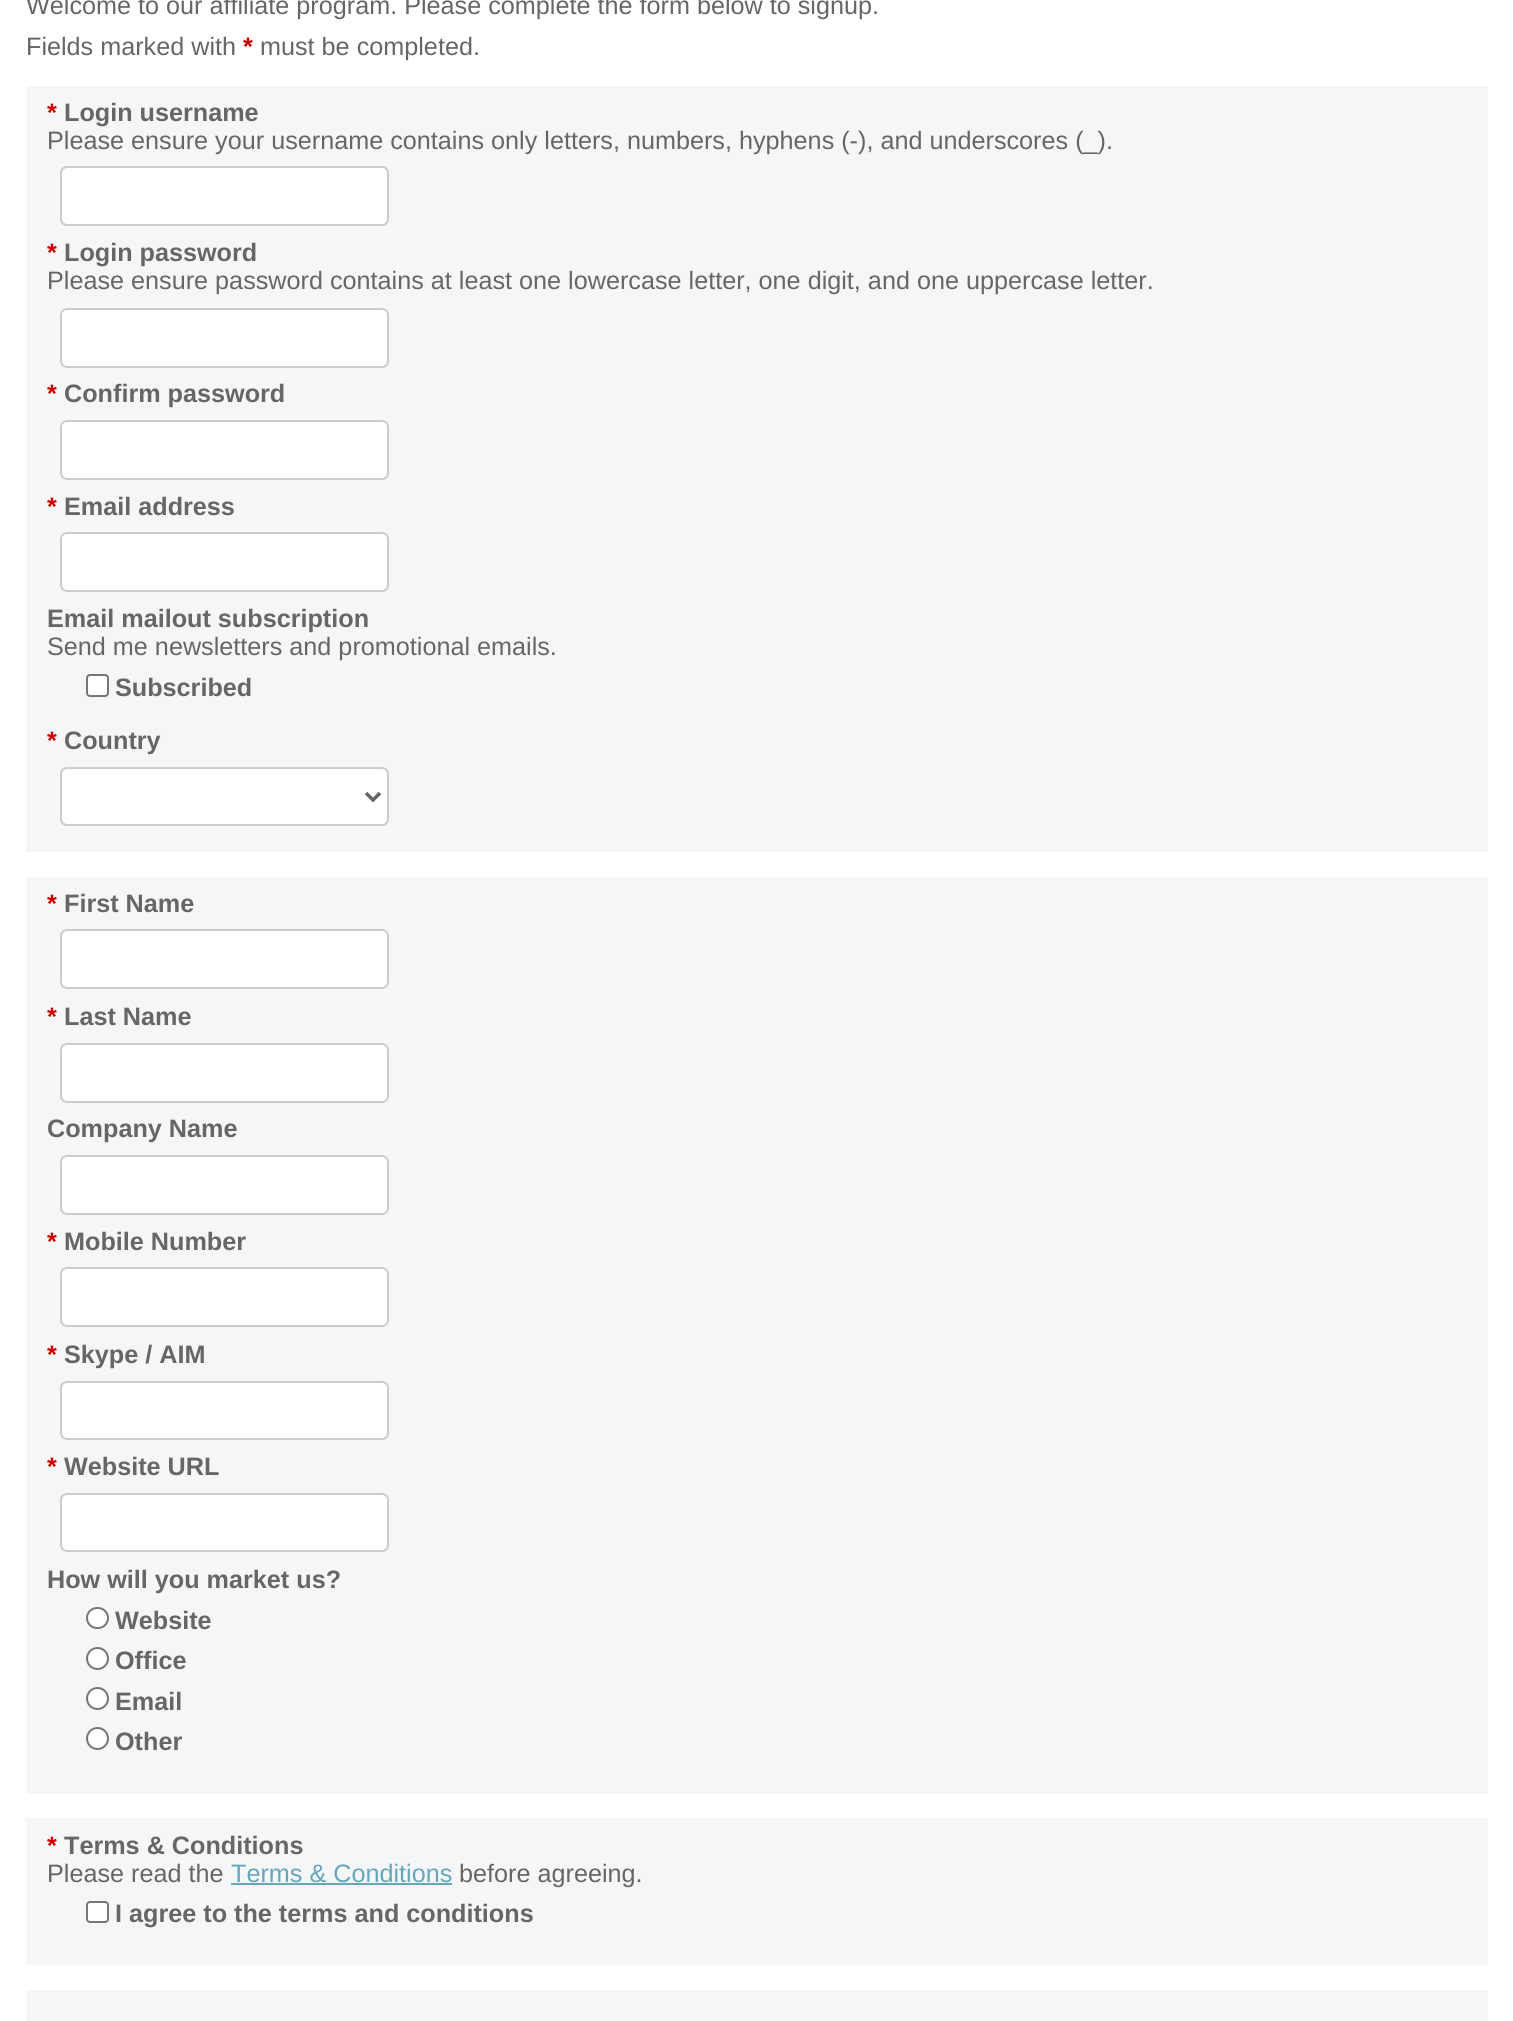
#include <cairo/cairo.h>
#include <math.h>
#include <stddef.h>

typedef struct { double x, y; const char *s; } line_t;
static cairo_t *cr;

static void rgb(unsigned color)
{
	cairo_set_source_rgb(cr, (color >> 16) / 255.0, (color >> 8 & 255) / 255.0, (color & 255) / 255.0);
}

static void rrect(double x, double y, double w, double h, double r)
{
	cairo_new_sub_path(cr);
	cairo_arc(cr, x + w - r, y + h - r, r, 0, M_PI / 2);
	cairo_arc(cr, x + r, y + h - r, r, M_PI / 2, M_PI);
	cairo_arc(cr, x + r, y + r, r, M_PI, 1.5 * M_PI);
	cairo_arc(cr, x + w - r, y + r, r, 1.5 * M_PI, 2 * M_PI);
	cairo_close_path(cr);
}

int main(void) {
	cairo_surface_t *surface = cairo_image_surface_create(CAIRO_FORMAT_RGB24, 1513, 2021);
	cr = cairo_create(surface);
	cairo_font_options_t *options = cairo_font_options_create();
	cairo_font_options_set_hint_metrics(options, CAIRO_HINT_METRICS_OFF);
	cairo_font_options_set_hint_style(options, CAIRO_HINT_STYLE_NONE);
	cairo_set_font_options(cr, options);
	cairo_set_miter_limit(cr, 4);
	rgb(0xffffff);
	cairo_paint(cr);
	rgb(0xf5f6f7);
	cairo_rectangle(cr, 26, 86, 1462, 766);
	cairo_fill(cr);
	rgb(0xffffff);
	rrect(61, 167, 327, 58, 6);
	cairo_fill_preserve(cr);
	rgb(0xcccccc);
	cairo_stroke(cr);
	rgb(0xffffff);
	rrect(61, 309, 327, 58, 6);
	cairo_fill_preserve(cr);
	rgb(0xcccccc);
	cairo_stroke(cr);
	rgb(0xffffff);
	rrect(61, 421, 327, 58, 6);
	cairo_fill_preserve(cr);
	rgb(0xcccccc);
	cairo_stroke(cr);
	rgb(0xffffff);
	rrect(61, 533, 327, 58, 6);
	cairo_fill_preserve(cr);
	rgb(0xcccccc);
	cairo_stroke(cr);
	rgb(0xffffff);
	rrect(87, 675, 21, 21, 3);
	cairo_fill_preserve(cr);
	rgb(0x767676);
	cairo_stroke(cr);
	rgb(0xffffff);
	rrect(61, 768, 327, 57, 6);
	cairo_fill_preserve(cr);
	rgb(0xcccccc);
	cairo_stroke(cr);
	cairo_new_path(cr);
	cairo_move_to(cr, 366, 793);
	cairo_line_to(cr, 373, 800);
	cairo_line_to(cr, 380, 793);
	rgb(0x666666);
	cairo_set_line_width(cr, 3.5);
	cairo_stroke(cr);
	rgb(0xf5f6f7);
	cairo_rectangle(cr, 26, 877, 1462, 917);
	cairo_fill(cr);
	rgb(0xffffff);
	rrect(61, 930, 327, 58, 6);
	cairo_fill_preserve(cr);
	rgb(0xcccccc);
	cairo_set_line_width(cr, 2);
	cairo_stroke(cr);
	rgb(0xffffff);
	rrect(61, 1044, 327, 58, 6);
	cairo_fill_preserve(cr);
	rgb(0xcccccc);
	cairo_stroke(cr);
	rgb(0xffffff);
	rrect(61, 1156, 327, 58, 6);
	cairo_fill_preserve(cr);
	rgb(0xcccccc);
	cairo_stroke(cr);
	rgb(0xffffff);
	rrect(61, 1268, 327, 58, 6);
	cairo_fill_preserve(cr);
	rgb(0xcccccc);
	cairo_stroke(cr);
	rgb(0xffffff);
	rrect(61, 1382, 327, 57, 6);
	cairo_fill_preserve(cr);
	rgb(0xcccccc);
	cairo_stroke(cr);
	rgb(0xffffff);
	rrect(61, 1494, 327, 57, 6);
	cairo_fill_preserve(cr);
	rgb(0xcccccc);
	cairo_stroke(cr);
	rgb(0xffffff);
	rrect(87, 1608, 21, 20, 10);
	cairo_fill_preserve(cr);
	rgb(0x767676);
	cairo_stroke(cr);
	rgb(0xffffff);
	cairo_arc(cr, 97.5, 1658.5, 10.5, 0, 2 * M_PI);
	cairo_fill_preserve(cr);
	rgb(0x767676);
	cairo_stroke(cr);
	rgb(0xffffff);
	cairo_arc(cr, 97.5, 1698.5, 10.5, 0, 2 * M_PI);
	cairo_fill_preserve(cr);
	rgb(0x767676);
	cairo_stroke(cr);
	rgb(0xffffff);
	cairo_arc(cr, 97.5, 1738.5, 10.5, 0, 2 * M_PI);
	cairo_fill_preserve(cr);
	rgb(0x767676);
	cairo_stroke(cr);
	rgb(0xf5f6f7);
	cairo_rectangle(cr, 26, 1818, 1462, 147);
	cairo_fill(cr);
	rgb(0x67a6ba);
	cairo_rectangle(cr, 231, 1883, 221, 2);
	cairo_fill(cr);
	rgb(0xffffff);
	rrect(87, 1902, 21, 20, 3);
	cairo_fill_preserve(cr);
	rgb(0x767676);
	cairo_stroke(cr);
	rgb(0xf5f6f7);
	cairo_rectangle(cr, 26, 1990, 1462, 31);
	cairo_fill(cr);
	cairo_select_font_face(cr, "Liberation Sans", CAIRO_FONT_SLANT_NORMAL, CAIRO_FONT_WEIGHT_NORMAL);
	cairo_set_font_size(cr, 25.2);
	rgb(0x666666);
	cairo_move_to(cr, 26, 14);
	cairo_show_text(cr, "Welcome to our affiliate program. Please complete the form below to signup.");
	cairo_move_to(cr, 26, 55);
	cairo_show_text(cr, "Fields marked with");
	cairo_select_font_face(cr, "Liberation Sans", CAIRO_FONT_SLANT_NORMAL, CAIRO_FONT_WEIGHT_BOLD);
	rgb(0xcc0000);
	cairo_move_to(cr, 243, 55);
	cairo_show_text(cr, "*");
	cairo_select_font_face(cr, "Liberation Sans", CAIRO_FONT_SLANT_NORMAL, CAIRO_FONT_WEIGHT_NORMAL);
	rgb(0x666666);
	cairo_move_to(cr, 260, 55);
	cairo_show_text(cr, "must be completed.");
	cairo_select_font_face(cr, "Liberation Sans", CAIRO_FONT_SLANT_NORMAL, CAIRO_FONT_WEIGHT_BOLD);
	rgb(0xcc0000);
	cairo_move_to(cr, 47, 121);
	cairo_show_text(cr, "*");
	rgb(0x666666);
	cairo_move_to(cr, 64, 121);
	cairo_show_text(cr, "Login username");
	cairo_select_font_face(cr, "Liberation Sans", CAIRO_FONT_SLANT_NORMAL, CAIRO_FONT_WEIGHT_NORMAL);
	cairo_move_to(cr, 47, 149);
	cairo_show_text(cr, "Please ensure your username contains only letters, numbers, hyphens (-), and underscores (_).");
	cairo_select_font_face(cr, "Liberation Sans", CAIRO_FONT_SLANT_NORMAL, CAIRO_FONT_WEIGHT_BOLD);
	rgb(0xcc0000);
	cairo_move_to(cr, 47, 261);
	cairo_show_text(cr, "*");
	rgb(0x666666);
	cairo_move_to(cr, 64, 261);
	cairo_show_text(cr, "Login password");
	cairo_select_font_face(cr, "Liberation Sans", CAIRO_FONT_SLANT_NORMAL, CAIRO_FONT_WEIGHT_NORMAL);
	cairo_move_to(cr, 47, 289);
	cairo_show_text(cr, "Please ensure password contains at least one lowercase letter, one digit, and one uppercase letter.");
	cairo_select_font_face(cr, "Liberation Sans", CAIRO_FONT_SLANT_NORMAL, CAIRO_FONT_WEIGHT_BOLD);
	rgb(0xcc0000);
	cairo_move_to(cr, 47, 402);
	cairo_show_text(cr, "*");
	rgb(0x666666);
	cairo_move_to(cr, 64, 402);
	cairo_show_text(cr, "Confirm password");
	rgb(0xcc0000);
	cairo_move_to(cr, 47, 515);
	cairo_show_text(cr, "*");
	rgb(0x666666);
	cairo_move_to(cr, 64, 515);
	cairo_show_text(cr, "Email address");
	cairo_move_to(cr, 47, 627);
	cairo_show_text(cr, "Email mailout subscription");
	cairo_select_font_face(cr, "Liberation Sans", CAIRO_FONT_SLANT_NORMAL, CAIRO_FONT_WEIGHT_NORMAL);
	cairo_move_to(cr, 47, 655);
	cairo_show_text(cr, "Send me newsletters and promotional emails.");
	cairo_select_font_face(cr, "Liberation Sans", CAIRO_FONT_SLANT_NORMAL, CAIRO_FONT_WEIGHT_BOLD);
	cairo_move_to(cr, 115, 696);
	cairo_show_text(cr, "Subscribed");
	rgb(0xcc0000);
	cairo_move_to(cr, 47, 749);
	cairo_show_text(cr, "*");
	rgb(0x666666);
	cairo_move_to(cr, 64, 749);
	cairo_show_text(cr, "Country");
	rgb(0xcc0000);
	cairo_move_to(cr, 47, 912);
	cairo_show_text(cr, "*");
	rgb(0x666666);
	cairo_move_to(cr, 64, 912);
	cairo_show_text(cr, "First Name");
	rgb(0xcc0000);
	cairo_move_to(cr, 47, 1025);
	cairo_show_text(cr, "*");
	rgb(0x666666);
	cairo_move_to(cr, 64, 1025);
	cairo_show_text(cr, "Last Name");
	cairo_move_to(cr, 47, 1137);
	cairo_show_text(cr, "Company Name");
	rgb(0xcc0000);
	cairo_move_to(cr, 47, 1250);
	cairo_show_text(cr, "*");
	rgb(0x666666);
	cairo_move_to(cr, 64, 1250);
	cairo_show_text(cr, "Mobile Number");
	rgb(0xcc0000);
	cairo_move_to(cr, 47, 1363);
	cairo_show_text(cr, "*");
	rgb(0x666666);
	cairo_move_to(cr, 64, 1363);
	cairo_show_text(cr, "Skype / AIM");
	rgb(0xcc0000);
	cairo_move_to(cr, 47, 1475);
	cairo_show_text(cr, "*");
	rgb(0x666666);
	{
		static const line_t items[] = {
			{64, 1475, "Website URL"},
			{47, 1588, "How will you market us?"},
			{115, 1629, "Website"},
			{115, 1669, "Office"},
			{115, 1710, "Email"},
			{115, 1750, "Other"},
		};
		for (size_t i = 0; i < sizeof items / sizeof *items; i++) {
			cairo_move_to(cr, items[i].x, items[i].y);
			cairo_show_text(cr, items[i].s);
		}
	}
	rgb(0xcc0000);
	cairo_move_to(cr, 47, 1854);
	cairo_show_text(cr, "*");
	rgb(0x666666);
	cairo_move_to(cr, 64, 1854);
	cairo_show_text(cr, "Terms & Conditions");
	cairo_select_font_face(cr, "Liberation Sans", CAIRO_FONT_SLANT_NORMAL, CAIRO_FONT_WEIGHT_NORMAL);
	cairo_move_to(cr, 47, 1882);
	cairo_show_text(cr, "Please read the");
	rgb(0x67a6ba);
	cairo_move_to(cr, 231, 1882);
	cairo_show_text(cr, "Terms & Conditions");
	rgb(0x666666);
	cairo_move_to(cr, 459, 1882);
	cairo_show_text(cr, "before agreeing.");
	cairo_select_font_face(cr, "Liberation Sans", CAIRO_FONT_SLANT_NORMAL, CAIRO_FONT_WEIGHT_BOLD);
	cairo_move_to(cr, 115, 1922);
	cairo_show_text(cr, "I agree to the terms and conditions");
	cairo_surface_write_to_png(surface, "page.png");
	cairo_font_options_destroy(options);
	cairo_destroy(cr);
	cairo_surface_destroy(surface);
	return 0;
}
